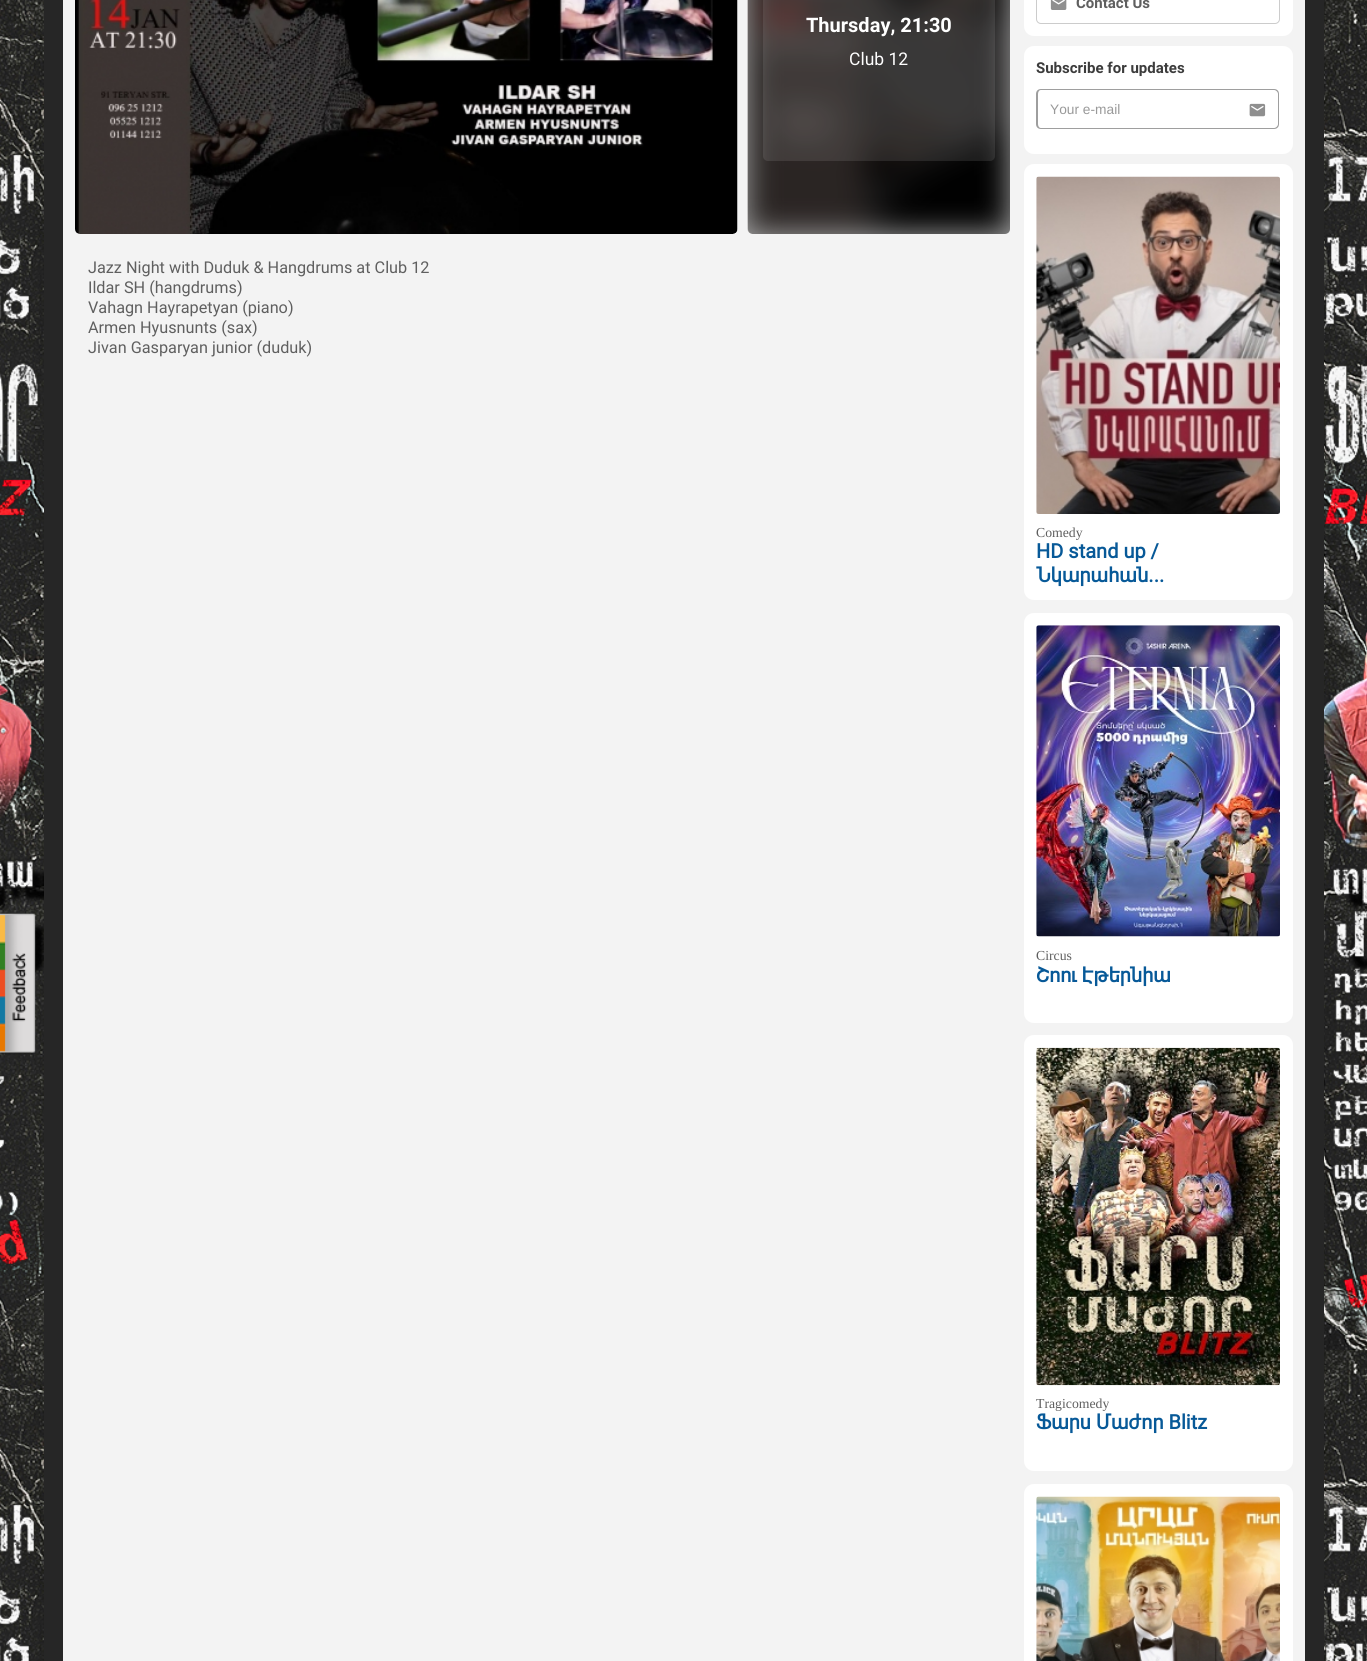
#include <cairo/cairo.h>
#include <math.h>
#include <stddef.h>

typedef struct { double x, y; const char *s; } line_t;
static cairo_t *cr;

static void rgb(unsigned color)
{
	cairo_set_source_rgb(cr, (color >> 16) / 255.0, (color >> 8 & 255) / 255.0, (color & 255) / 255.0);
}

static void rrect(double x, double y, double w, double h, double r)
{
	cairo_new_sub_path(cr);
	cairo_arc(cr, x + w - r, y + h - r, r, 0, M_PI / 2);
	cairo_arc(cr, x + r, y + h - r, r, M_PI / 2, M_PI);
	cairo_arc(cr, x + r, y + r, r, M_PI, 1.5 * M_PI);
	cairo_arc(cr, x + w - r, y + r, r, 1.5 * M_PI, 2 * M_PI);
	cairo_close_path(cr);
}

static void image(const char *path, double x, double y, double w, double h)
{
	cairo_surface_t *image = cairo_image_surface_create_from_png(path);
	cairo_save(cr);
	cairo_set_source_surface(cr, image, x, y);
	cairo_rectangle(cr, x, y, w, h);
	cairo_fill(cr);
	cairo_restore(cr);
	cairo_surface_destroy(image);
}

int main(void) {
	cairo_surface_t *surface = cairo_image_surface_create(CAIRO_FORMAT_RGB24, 1367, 1661);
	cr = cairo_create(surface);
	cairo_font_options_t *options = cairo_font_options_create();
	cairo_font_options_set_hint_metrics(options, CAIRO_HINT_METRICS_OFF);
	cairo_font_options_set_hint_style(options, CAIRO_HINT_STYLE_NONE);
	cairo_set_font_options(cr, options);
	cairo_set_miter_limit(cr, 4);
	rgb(0xffffff);
	cairo_paint(cr);
	image("img/1.png", 0, 0, 1367, 1661);
	image("img/2.png", 0, 913, 36, 142);
	rgb(0x262626);
	cairo_rectangle(cr, 44, 0, 1280, 1661);
	cairo_fill(cr);
	rgb(0xf3f3f3);
	cairo_rectangle(cr, 63, 0, 1242, 1661);
	cairo_fill(cr);
	image("img/3.png", 75, 0, 663, 234);
	image("img/4.png", 747, 0, 263, 234);
	cairo_set_source_rgba(cr, 0, 0, 0, 0.3);
	rrect(748, -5, 262, 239, 5);
	cairo_fill(cr);
	cairo_set_source_rgba(cr, 1, 1, 1, 0.1);
	rrect(763, -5, 232, 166, 5);
	cairo_fill(cr);
	rgb(0xffffff);
	rrect(1024, -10, 269, 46, 10);
	cairo_fill(cr);
	rrect(1036.5, -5.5, 243, 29, 4.5);
	rgb(0xcccccc);
	cairo_set_line_width(cr, 1);
	cairo_stroke(cr);
	image("img/5.png", 1050, 0, 17, 10);
	rgb(0xffffff);
	rrect(1024, 46, 269, 108, 10);
	cairo_fill(cr);
	rgb(0x9e9e9e);
	cairo_set_fill_rule(cr, CAIRO_FILL_RULE_EVEN_ODD);
	cairo_new_path(cr);
	cairo_move_to(cr, 1242, 89);
	cairo_line_to(cr, 1274, 89);
	cairo_curve_to(cr, 1277, 89, 1279, 91, 1279, 94);
	cairo_line_to(cr, 1279, 124);
	cairo_curve_to(cr, 1279, 127, 1277, 129, 1274, 129);
	cairo_line_to(cr, 1242, 129);
	cairo_close_path(cr);
	cairo_move_to(cr, 1242, 90);
	cairo_line_to(cr, 1274, 90);
	cairo_curve_to(cr, 1276, 90, 1278, 92, 1278, 94);
	cairo_line_to(cr, 1278, 124);
	cairo_curve_to(cr, 1278, 126, 1276, 128, 1274, 128);
	cairo_line_to(cr, 1242, 128);
	cairo_close_path(cr);
	cairo_fill(cr);
	rgb(0xffffff);
	cairo_new_path(cr);
	cairo_move_to(cr, 1041, 89);
	cairo_line_to(cr, 1244, 89);
	cairo_line_to(cr, 1244, 129);
	cairo_line_to(cr, 1041, 129);
	cairo_curve_to(cr, 1038, 129, 1036, 127, 1036, 124);
	cairo_line_to(cr, 1036, 94);
	cairo_curve_to(cr, 1036, 91, 1038, 89, 1041, 89);
	cairo_close_path(cr);
	cairo_fill(cr);
	rgb(0x9e9e9e);
	cairo_new_path(cr);
	cairo_move_to(cr, 1041, 89);
	cairo_line_to(cr, 1244, 89);
	cairo_line_to(cr, 1244, 129);
	cairo_line_to(cr, 1041, 129);
	cairo_curve_to(cr, 1038, 129, 1036, 127, 1036, 124);
	cairo_line_to(cr, 1036, 94);
	cairo_curve_to(cr, 1036, 91, 1038, 89, 1041, 89);
	cairo_close_path(cr);
	cairo_move_to(cr, 1041, 90);
	cairo_line_to(cr, 1244, 90);
	cairo_line_to(cr, 1244, 128);
	cairo_line_to(cr, 1041, 128);
	cairo_curve_to(cr, 1039, 128, 1038, 126, 1038, 124);
	cairo_line_to(cr, 1038, 94);
	cairo_curve_to(cr, 1038, 92, 1039, 90, 1041, 90);
	cairo_close_path(cr);
	cairo_fill(cr);
	image("img/6.png", 1249, 103, 17, 14);
	rgb(0xffffff);
	rrect(1024, 164, 269, 436, 10);
	cairo_fill(cr);
	image("img/7.png", 1036, 176, 244, 338);
	rrect(1024, 613, 269, 410, 10);
	cairo_fill(cr);
	image("img/8.png", 1036, 625, 244, 312);
	rrect(1024, 1035, 269, 436, 10);
	cairo_fill(cr);
	image("img/9.png", 1036, 1047, 244, 339);
	rrect(1024, 1484, 269, 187, 10);
	cairo_fill(cr);
	image("img/10.png", 1036, 1496, 244, 165);
	cairo_select_font_face(cr, "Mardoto", CAIRO_FONT_SLANT_NORMAL, CAIRO_FONT_WEIGHT_BOLD);
	cairo_set_font_size(cr, 20);
	cairo_move_to(cr, 806, 32);
	cairo_show_text(cr, "Thursday, 21:30");
	cairo_select_font_face(cr, "Mardoto", CAIRO_FONT_SLANT_NORMAL, CAIRO_FONT_WEIGHT_NORMAL);
	cairo_set_font_size(cr, 17.5);
	cairo_move_to(cr, 849, 65);
	cairo_show_text(cr, "Club 12");
	cairo_set_font_size(cr, 16.25);
	rgb(0x5f5f5f);
	{
		static const line_t items[] = {
			{88, 273, "Jazz Night with Duduk & Hangdrums at Club 12"},
			{88, 293, "Ildar SH (hangdrums)"},
			{88, 313, "Vahagn Hayrapetyan (piano)"},
			{88, 333, "Armen Hyusnunts (sax)"},
			{88, 353, "Jivan Gasparyan junior (duduk)"},
		};
		for (size_t i = 0; i < sizeof items / sizeof *items; i++) {
			cairo_move_to(cr, items[i].x, items[i].y);
			cairo_show_text(cr, items[i].s);
		}
	}
	cairo_select_font_face(cr, "Mardoto", CAIRO_FONT_SLANT_NORMAL, CAIRO_FONT_WEIGHT_BOLD);
	cairo_set_font_size(cr, 15);
	cairo_move_to(cr, 1076, 8);
	cairo_show_text(cr, "Contact Us");
	rgb(0x3c3c3c);
	cairo_move_to(cr, 1036, 73);
	cairo_show_text(cr, "Subscribe for updates");
	cairo_select_font_face(cr, "Liberation Sans", CAIRO_FONT_SLANT_NORMAL, CAIRO_FONT_WEIGHT_NORMAL);
	cairo_set_font_size(cr, 13.75);
	rgb(0x999999);
	cairo_move_to(cr, 1050, 114);
	cairo_show_text(cr, "Your e-mail");
	cairo_select_font_face(cr, "Liberation Serif", CAIRO_FONT_SLANT_NORMAL, CAIRO_FONT_WEIGHT_NORMAL);
	rgb(0x5f5f5f);
	cairo_move_to(cr, 1036, 537);
	cairo_show_text(cr, "Comedy");
	cairo_select_font_face(cr, "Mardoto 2", CAIRO_FONT_SLANT_NORMAL, CAIRO_FONT_WEIGHT_BOLD);
	cairo_set_font_size(cr, 20);
	rgb(0x075998);
	cairo_move_to(cr, 1036, 558);
	cairo_show_text(cr, "HD stand up /");
	cairo_move_to(cr, 1036, 582);
	cairo_show_text(cr, "Նկարահան...");
	cairo_select_font_face(cr, "Liberation Serif", CAIRO_FONT_SLANT_NORMAL, CAIRO_FONT_WEIGHT_NORMAL);
	cairo_set_font_size(cr, 13.75);
	rgb(0x5f5f5f);
	cairo_move_to(cr, 1036, 960);
	cairo_show_text(cr, "Circus");
	cairo_select_font_face(cr, "Mardoto 2", CAIRO_FONT_SLANT_NORMAL, CAIRO_FONT_WEIGHT_BOLD);
	cairo_set_font_size(cr, 20);
	rgb(0x075998);
	cairo_move_to(cr, 1036, 982);
	cairo_show_text(cr, "Շոու Էթերնիա");
	cairo_select_font_face(cr, "Liberation Serif", CAIRO_FONT_SLANT_NORMAL, CAIRO_FONT_WEIGHT_NORMAL);
	cairo_set_font_size(cr, 13.75);
	rgb(0x5f5f5f);
	cairo_move_to(cr, 1036, 1408);
	cairo_show_text(cr, "Tragicomedy");
	cairo_select_font_face(cr, "Mardoto 2", CAIRO_FONT_SLANT_NORMAL, CAIRO_FONT_WEIGHT_BOLD);
	cairo_set_font_size(cr, 20);
	rgb(0x075998);
	cairo_move_to(cr, 1036, 1429);
	cairo_show_text(cr, "Ֆարս Մաժոր Blitz");
	cairo_surface_write_to_png(surface, "page.png");
	cairo_font_options_destroy(options);
	cairo_destroy(cr);
	cairo_surface_destroy(surface);
	return 0;
}
